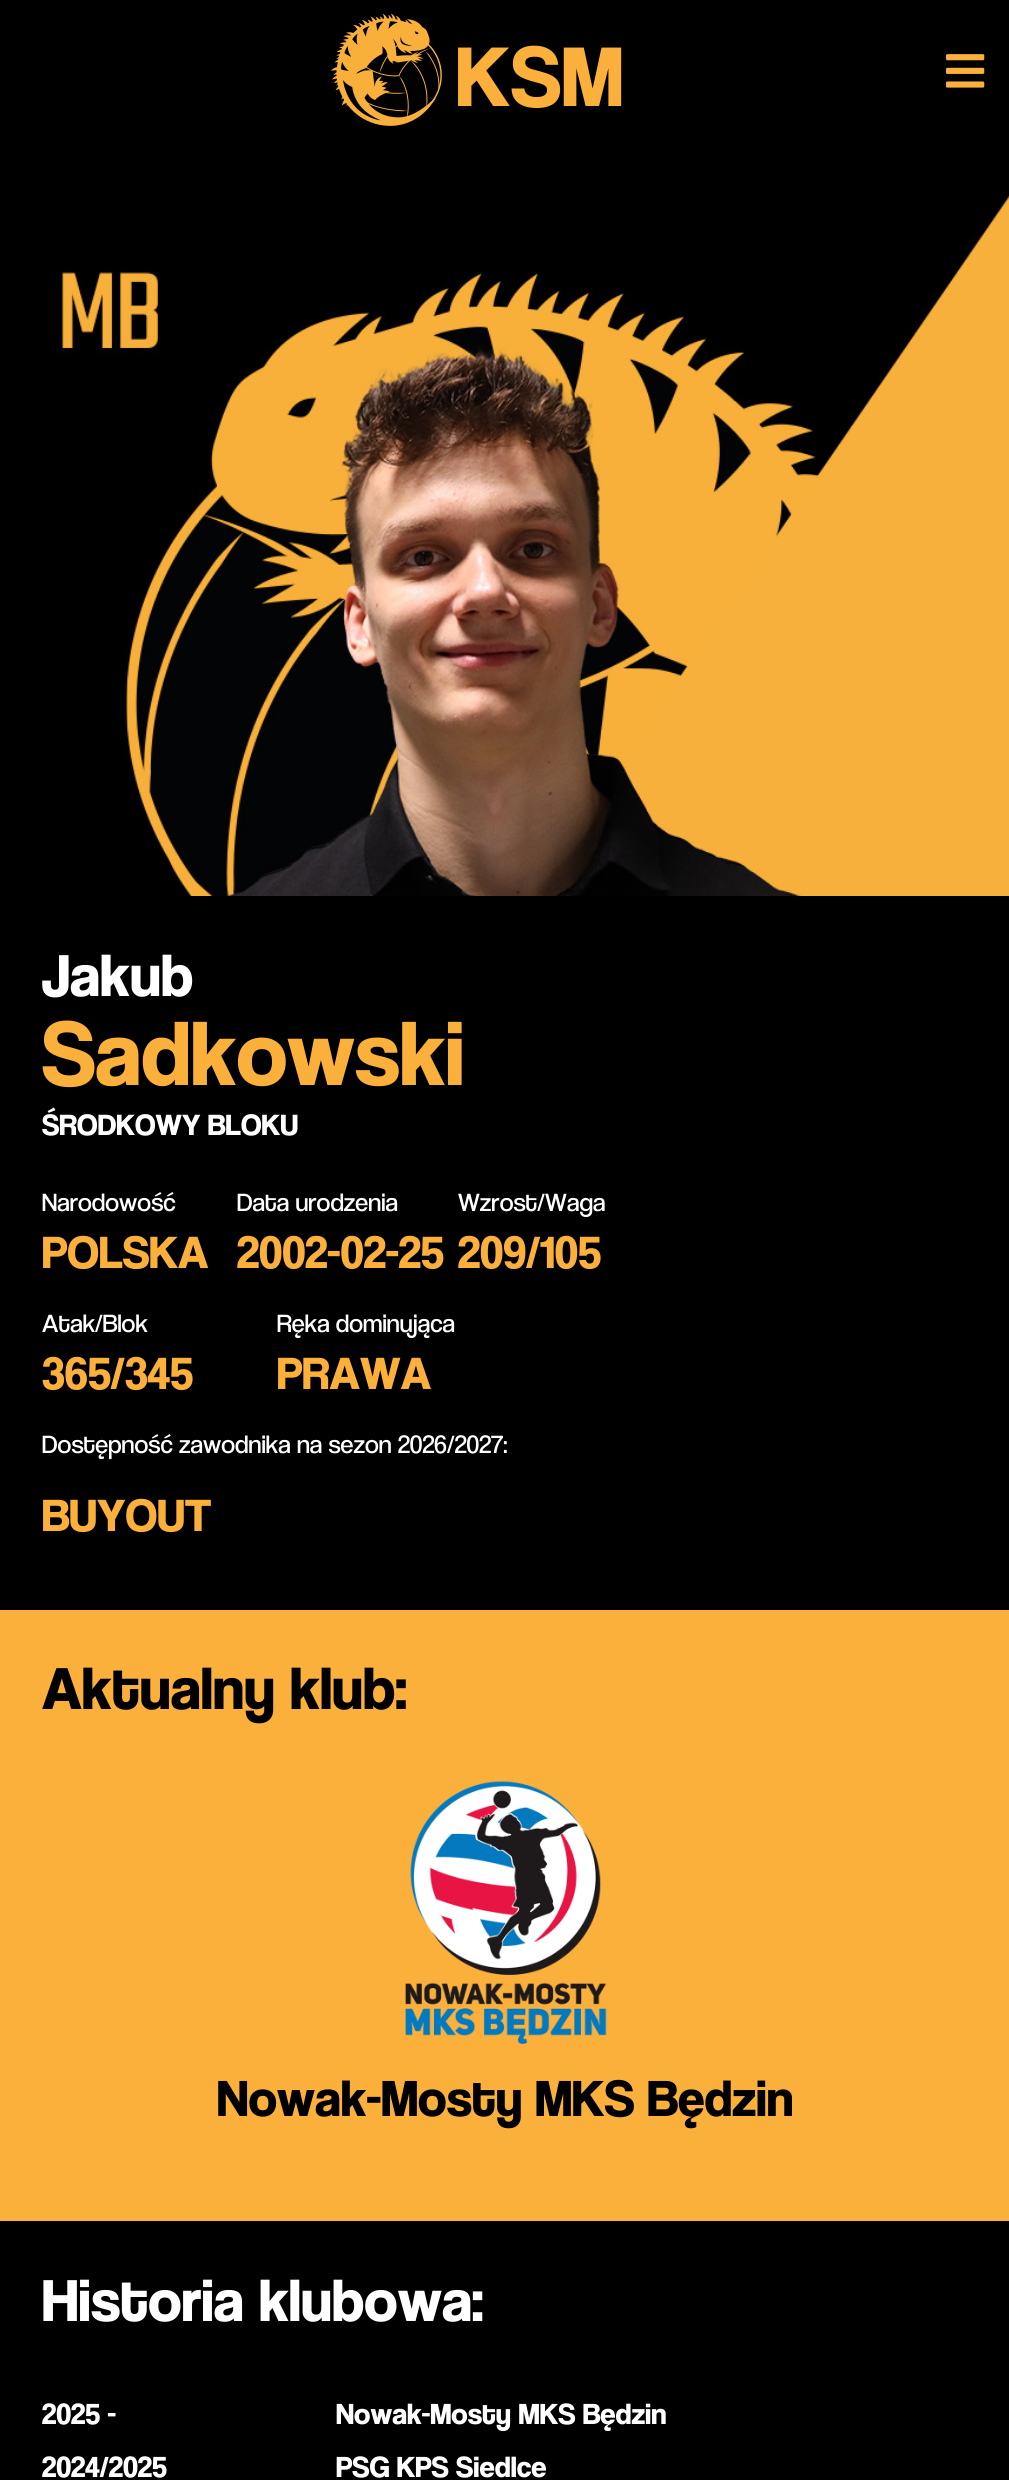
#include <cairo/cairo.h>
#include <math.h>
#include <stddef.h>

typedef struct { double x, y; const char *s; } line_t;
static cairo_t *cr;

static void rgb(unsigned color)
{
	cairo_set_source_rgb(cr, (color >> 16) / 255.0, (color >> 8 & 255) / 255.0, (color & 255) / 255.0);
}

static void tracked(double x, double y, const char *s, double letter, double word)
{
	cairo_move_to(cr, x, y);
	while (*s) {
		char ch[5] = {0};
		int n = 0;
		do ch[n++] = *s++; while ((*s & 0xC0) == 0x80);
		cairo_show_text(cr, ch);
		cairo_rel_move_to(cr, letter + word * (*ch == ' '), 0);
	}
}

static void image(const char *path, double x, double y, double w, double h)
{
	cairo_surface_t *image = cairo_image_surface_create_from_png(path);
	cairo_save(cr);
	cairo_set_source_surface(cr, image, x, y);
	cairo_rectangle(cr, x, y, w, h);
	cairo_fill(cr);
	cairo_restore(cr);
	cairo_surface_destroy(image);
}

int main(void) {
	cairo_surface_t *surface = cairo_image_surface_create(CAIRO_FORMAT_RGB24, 1009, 2480);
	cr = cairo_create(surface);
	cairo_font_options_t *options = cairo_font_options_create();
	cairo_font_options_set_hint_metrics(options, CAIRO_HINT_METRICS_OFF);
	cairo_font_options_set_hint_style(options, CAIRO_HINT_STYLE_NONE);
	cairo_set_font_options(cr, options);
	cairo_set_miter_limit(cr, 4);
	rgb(0x000000);
	cairo_paint(cr);
	image("img/1.png", 331, 13, 111, 113);
	image("img/2.png", 946, 54, 39, 34);
	image("img/3.png", 57, 196, 952, 700);
	rgb(0xfbb03b);
	cairo_rectangle(cr, 0, 1610, 1009, 611);
	cairo_fill(cr);
	image("img/4.png", 405, 1781, 202, 263);
	cairo_select_font_face(cr, "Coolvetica", CAIRO_FONT_SLANT_NORMAL, CAIRO_FONT_WEIGHT_BOLD);
	cairo_set_font_size(cr, 88);
	tracked(456, 106, "KSM", 1, 0);
	cairo_set_font_size(cr, 61.5);
	rgb(0xffffff);
	cairo_move_to(cr, 42, 996);
	cairo_show_text(cr, "Jakub");
	cairo_set_font_size(cr, 94);
	rgb(0xfbb03b);
	cairo_move_to(cr, 42, 1085);
	cairo_show_text(cr, "Sadkowski");
	cairo_set_font_size(cr, 30.5);
	rgb(0xffffff);
	cairo_move_to(cr, 42, 1135);
	cairo_show_text(cr, "ŚRODKOWY BLOKU");
	cairo_select_font_face(cr, "Coolvetica", CAIRO_FONT_SLANT_NORMAL, CAIRO_FONT_WEIGHT_NORMAL);
	cairo_set_font_size(cr, 26);
	cairo_move_to(cr, 42, 1211);
	cairo_show_text(cr, "Narodowość");
	cairo_select_font_face(cr, "Coolvetica", CAIRO_FONT_SLANT_NORMAL, CAIRO_FONT_WEIGHT_BOLD);
	cairo_set_font_size(cr, 47);
	rgb(0xfbb03b);
	cairo_move_to(cr, 42, 1268);
	cairo_show_text(cr, "POLSKA");
	cairo_select_font_face(cr, "Coolvetica", CAIRO_FONT_SLANT_NORMAL, CAIRO_FONT_WEIGHT_NORMAL);
	cairo_set_font_size(cr, 26);
	rgb(0xffffff);
	cairo_move_to(cr, 237, 1211);
	cairo_show_text(cr, "Data urodzenia");
	cairo_select_font_face(cr, "Coolvetica", CAIRO_FONT_SLANT_NORMAL, CAIRO_FONT_WEIGHT_BOLD);
	cairo_set_font_size(cr, 47);
	rgb(0xfbb03b);
	cairo_move_to(cr, 237, 1268);
	cairo_show_text(cr, "2002-02-25");
	cairo_select_font_face(cr, "Coolvetica", CAIRO_FONT_SLANT_NORMAL, CAIRO_FONT_WEIGHT_NORMAL);
	cairo_set_font_size(cr, 26);
	rgb(0xffffff);
	cairo_move_to(cr, 458, 1211);
	cairo_show_text(cr, "Wzrost/Waga");
	cairo_select_font_face(cr, "Coolvetica", CAIRO_FONT_SLANT_NORMAL, CAIRO_FONT_WEIGHT_BOLD);
	cairo_set_font_size(cr, 47);
	rgb(0xfbb03b);
	cairo_move_to(cr, 458, 1268);
	cairo_show_text(cr, "209/105");
	cairo_select_font_face(cr, "Coolvetica", CAIRO_FONT_SLANT_NORMAL, CAIRO_FONT_WEIGHT_NORMAL);
	cairo_set_font_size(cr, 26);
	rgb(0xffffff);
	cairo_move_to(cr, 42, 1332);
	cairo_show_text(cr, "Atak/Blok");
	cairo_select_font_face(cr, "Coolvetica", CAIRO_FONT_SLANT_NORMAL, CAIRO_FONT_WEIGHT_BOLD);
	cairo_set_font_size(cr, 47);
	rgb(0xfbb03b);
	cairo_move_to(cr, 42, 1389);
	cairo_show_text(cr, "365/345");
	cairo_select_font_face(cr, "Coolvetica", CAIRO_FONT_SLANT_NORMAL, CAIRO_FONT_WEIGHT_NORMAL);
	cairo_set_font_size(cr, 26);
	rgb(0xffffff);
	cairo_move_to(cr, 277, 1332);
	cairo_show_text(cr, "Ręka dominująca");
	cairo_select_font_face(cr, "Coolvetica", CAIRO_FONT_SLANT_NORMAL, CAIRO_FONT_WEIGHT_BOLD);
	cairo_set_font_size(cr, 47);
	rgb(0xfbb03b);
	cairo_move_to(cr, 277, 1389);
	cairo_show_text(cr, "PRAWA");
	cairo_select_font_face(cr, "Coolvetica", CAIRO_FONT_SLANT_NORMAL, CAIRO_FONT_WEIGHT_NORMAL);
	cairo_set_font_size(cr, 26);
	rgb(0xffffff);
	cairo_move_to(cr, 42, 1453);
	cairo_show_text(cr, "Dostępność zawodnika na sezon 2026/2027:");
	cairo_select_font_face(cr, "Coolvetica", CAIRO_FONT_SLANT_NORMAL, CAIRO_FONT_WEIGHT_BOLD);
	cairo_set_font_size(cr, 47);
	rgb(0xfbb03b);
	cairo_move_to(cr, 42, 1531);
	cairo_show_text(cr, "BUYOUT");
	cairo_set_font_size(cr, 61.5);
	rgb(0x000000);
	cairo_move_to(cr, 42, 1709);
	cairo_show_text(cr, "Aktualny klub:");
	cairo_set_font_size(cr, 52.75);
	cairo_move_to(cr, 217, 2116);
	cairo_show_text(cr, "Nowak-Mosty MKS Będzin");
	cairo_set_font_size(cr, 61.5);
	rgb(0xffffff);
	cairo_move_to(cr, 42, 2321);
	cairo_show_text(cr, "Historia klubowa:");
	cairo_set_font_size(cr, 30.25);
	{
		static const line_t items[] = {
			{42, 2424, "2025 -"},
			{336, 2424, "Nowak-Mosty MKS Będzin"},
			{42, 2477, "2024/2025"},
			{336, 2477, "PSG KPS Siedlce"},
		};
		for (size_t i = 0; i < sizeof items / sizeof *items; i++) {
			cairo_move_to(cr, items[i].x, items[i].y);
			cairo_show_text(cr, items[i].s);
		}
	}
	cairo_surface_write_to_png(surface, "page.png");
	cairo_font_options_destroy(options);
	cairo_destroy(cr);
	cairo_surface_destroy(surface);
	return 0;
}
